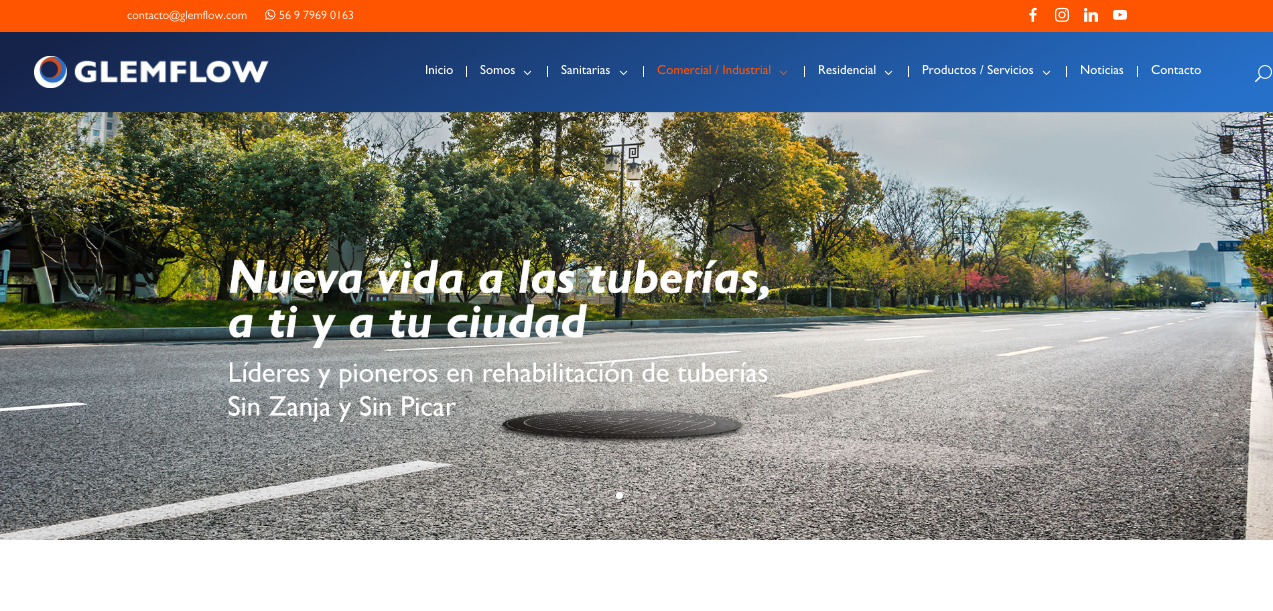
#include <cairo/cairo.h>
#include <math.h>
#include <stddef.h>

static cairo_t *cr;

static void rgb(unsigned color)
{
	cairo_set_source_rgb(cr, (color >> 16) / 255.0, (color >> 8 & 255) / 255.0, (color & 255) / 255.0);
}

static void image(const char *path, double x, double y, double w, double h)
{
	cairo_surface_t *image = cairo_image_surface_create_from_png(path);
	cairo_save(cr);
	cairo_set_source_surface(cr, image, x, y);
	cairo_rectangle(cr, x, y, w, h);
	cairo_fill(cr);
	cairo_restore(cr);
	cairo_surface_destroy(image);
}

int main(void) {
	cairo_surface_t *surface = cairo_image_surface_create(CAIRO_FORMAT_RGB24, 1273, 611);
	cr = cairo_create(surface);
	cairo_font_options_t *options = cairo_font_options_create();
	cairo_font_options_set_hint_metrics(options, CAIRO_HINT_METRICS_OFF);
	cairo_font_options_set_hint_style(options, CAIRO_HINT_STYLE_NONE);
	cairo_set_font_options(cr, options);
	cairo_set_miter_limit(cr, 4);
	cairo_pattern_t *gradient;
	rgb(0xffffff);
	cairo_paint(cr);
	rgb(0xff5400);
	cairo_rectangle(cr, 0, 0, 1273, 32);
	cairo_fill(cr);
	image("img/1.png", 127, 10, 120, 12);
	image("img/2.png", 265, 9, 11, 11);
	image("img/3.png", 279, 10, 74, 10);
	image("img/4.png", 1029, 7, 8, 15);
	image("img/5.png", 1055, 7, 14, 15);
	image("img/6.png", 1084, 7, 14, 15);
	image("img/7.png", 1113, 9, 14, 11);
	image("img/23.png", 0, 112, 1273, 428);
	cairo_set_source_rgba(cr, 0, 0, 0, 0.1);
	cairo_rectangle(cr, 0, 112, 1273, 1);
	cairo_fill(cr);
	gradient = cairo_pattern_create_linear(460, -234, 813, 378);
	cairo_pattern_add_color_stop_rgba(gradient, 0.05, 0.082, 0.137, 0.29, 1);
	cairo_pattern_add_color_stop_rgba(gradient, 0.95, 0.149, 0.439, 0.792, 1);
	cairo_set_source(cr, gradient);
	cairo_pattern_destroy(gradient);
	cairo_rectangle(cr, 0, 32, 1273, 80);
	cairo_fill(cr);
	image("img/8.png", 34, 56, 235, 32);
	image("img/9.png", 426, 65, 27, 10);
	rgb(0xffffff);
	cairo_rectangle(cr, 466, 66, 1, 11);
	cairo_fill(cr);
	image("img/10.png", 480, 65, 35, 10);
	image("img/11.png", 523, 70, 9, 5);
	cairo_rectangle(cr, 547, 66, 1, 11);
	cairo_fill(cr);
	image("img/12.png", 561, 65, 49, 10);
	image("img/13.png", 619, 70, 9, 5);
	cairo_rectangle(cr, 643, 66, 1, 11);
	cairo_fill(cr);
	image("img/14.png", 657, 65, 114, 10);
	image("img/15.png", 779, 70, 9, 5);
	cairo_rectangle(cr, 804, 66, 1, 11);
	cairo_fill(cr);
	image("img/16.png", 819, 65, 57, 10);
	image("img/17.png", 884, 70, 9, 5);
	cairo_rectangle(cr, 908, 66, 1, 11);
	cairo_fill(cr);
	image("img/18.png", 922, 65, 112, 10);
	image("img/19.png", 1042, 70, 9, 5);
	cairo_rectangle(cr, 1066, 66, 1, 11);
	cairo_fill(cr);
	image("img/20.png", 1081, 65, 43, 10);
	cairo_rectangle(cr, 1137, 66, 1, 11);
	cairo_fill(cr);
	image("img/21.png", 1151, 65, 50, 10);
	image("img/22.png", 1255, 65, 17, 18);
	cairo_arc(cr, 619.5, 495.5, 3.5, 0, 2 * M_PI);
	cairo_fill(cr);
	cairo_set_source_rgba(cr, 1, 1, 1, 0.25);
	cairo_arc(cr, 636.5, 495.5, 3.5, 0, 2 * M_PI);
	cairo_fill(cr);
	cairo_arc(cr, 653.5, 495.5, 3.5, 0, 2 * M_PI);
	cairo_fill(cr);
	cairo_surface_write_to_png(surface, "page.png");
	cairo_font_options_destroy(options);
	cairo_destroy(cr);
	cairo_surface_destroy(surface);
	return 0;
}
